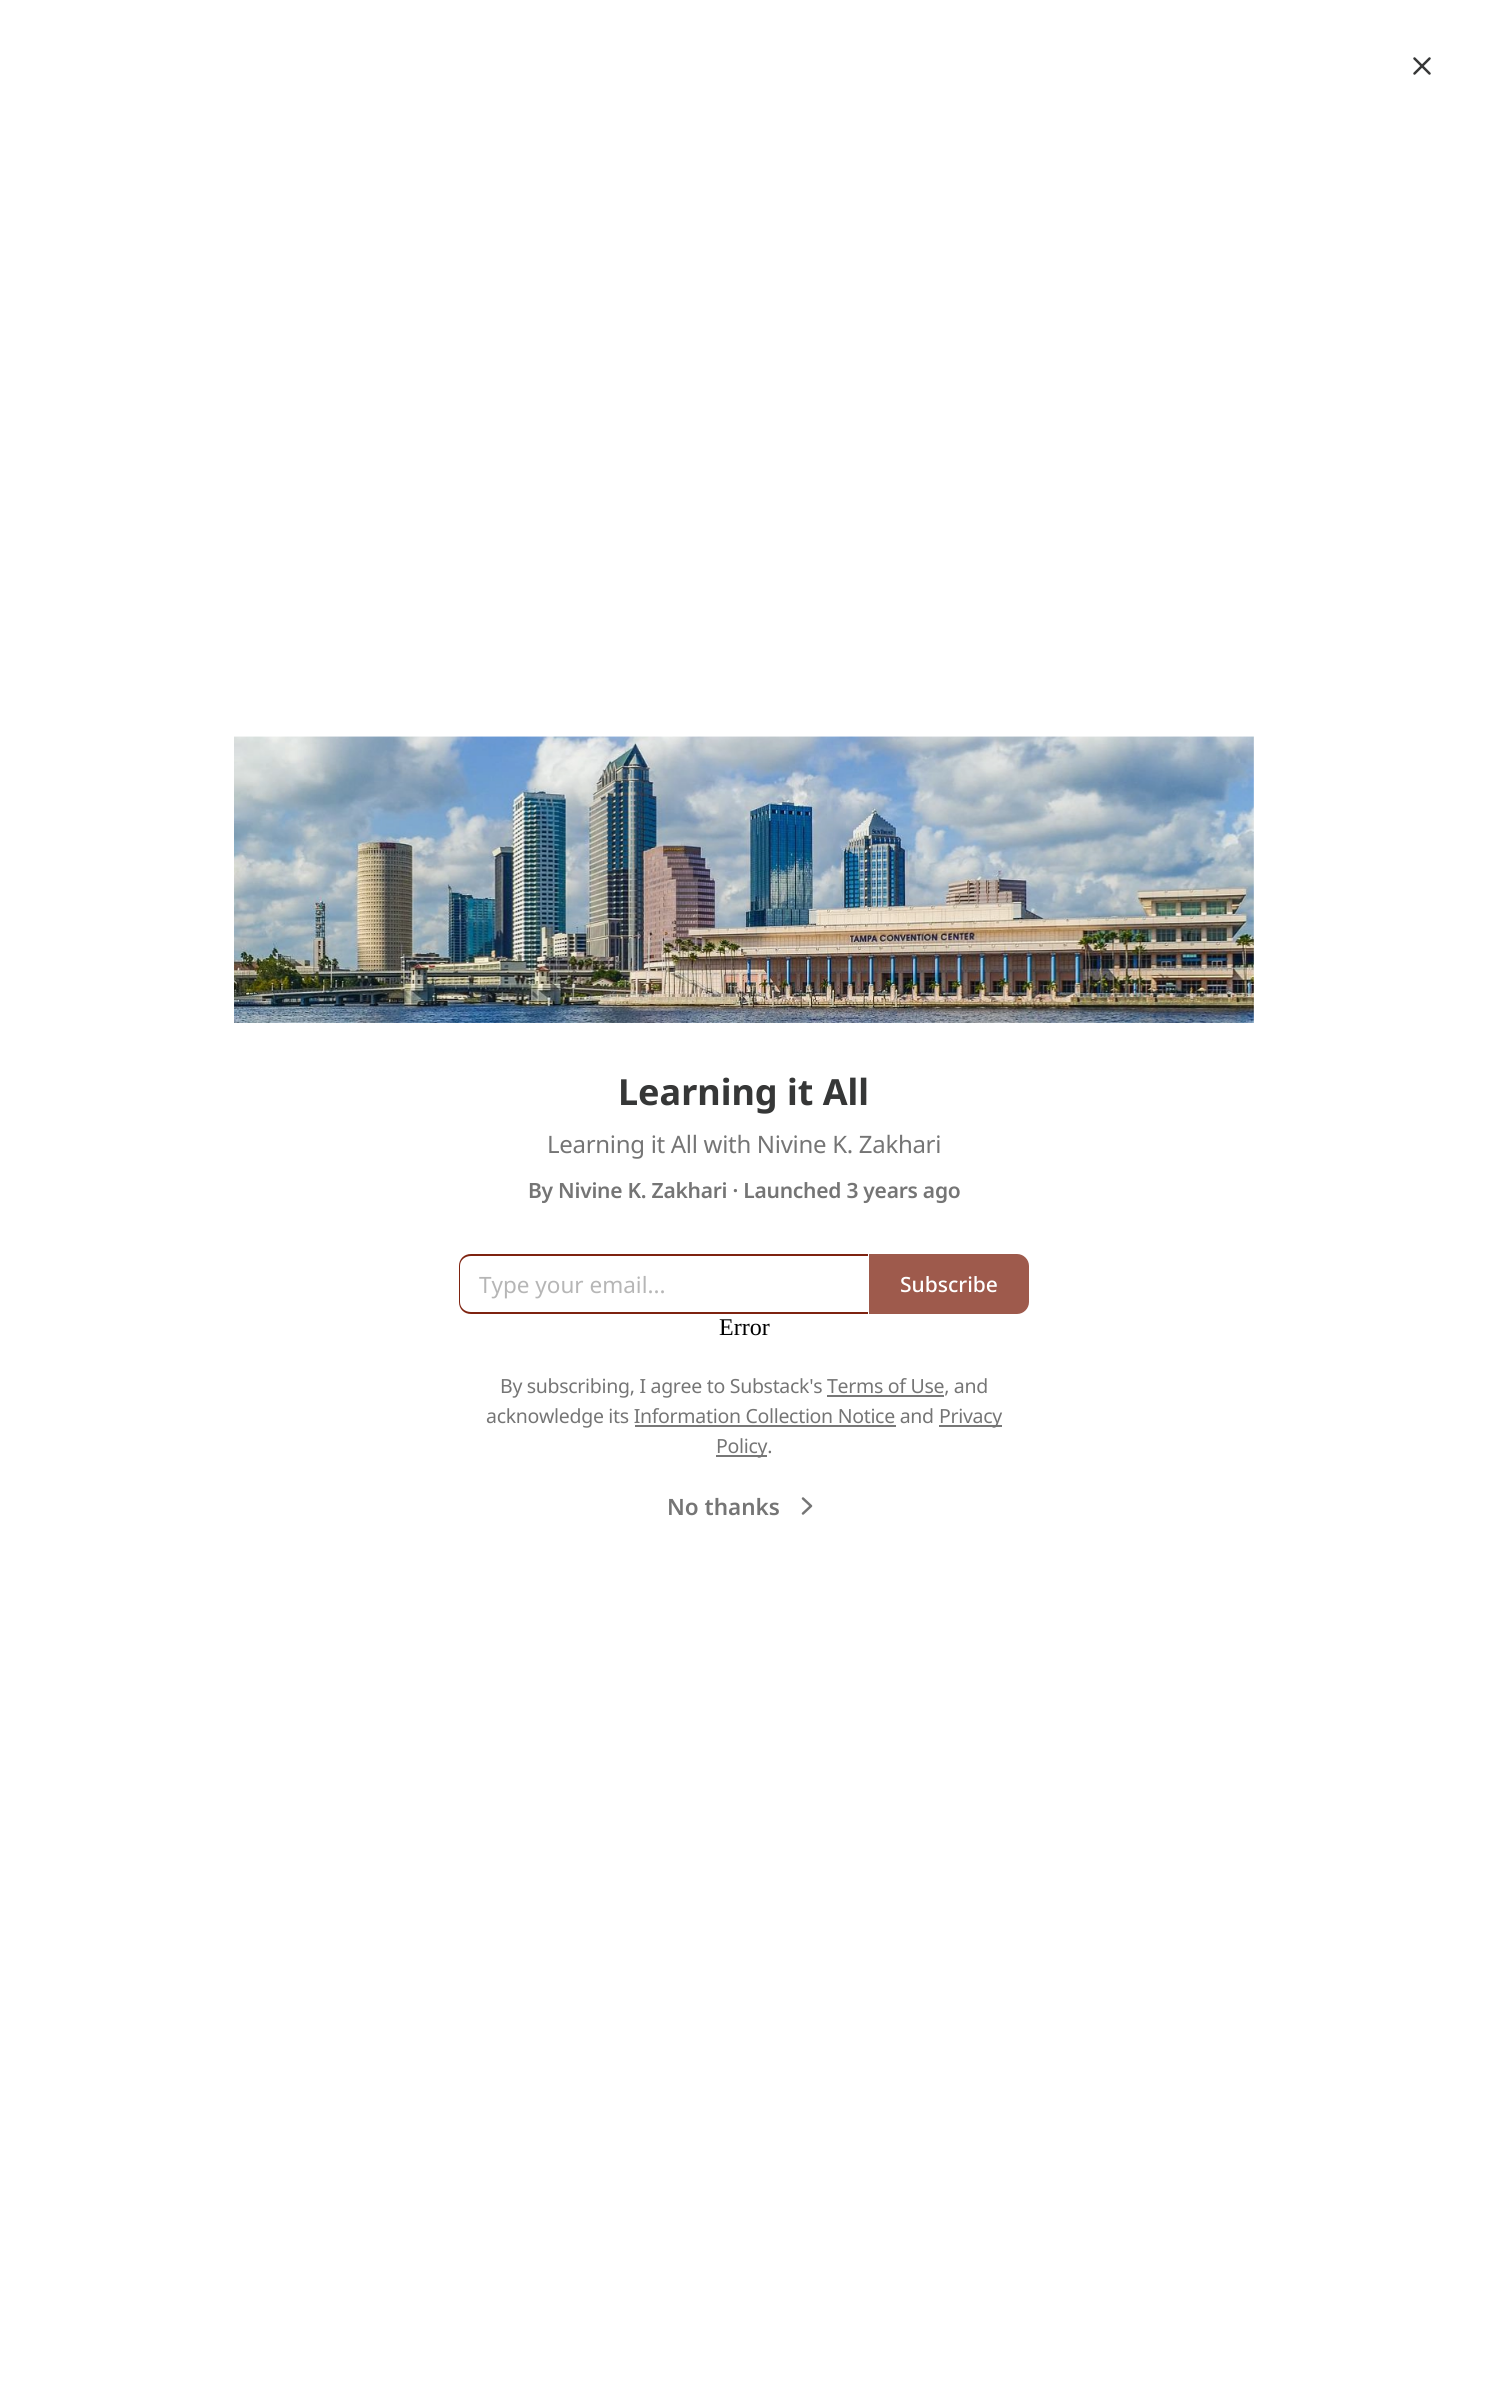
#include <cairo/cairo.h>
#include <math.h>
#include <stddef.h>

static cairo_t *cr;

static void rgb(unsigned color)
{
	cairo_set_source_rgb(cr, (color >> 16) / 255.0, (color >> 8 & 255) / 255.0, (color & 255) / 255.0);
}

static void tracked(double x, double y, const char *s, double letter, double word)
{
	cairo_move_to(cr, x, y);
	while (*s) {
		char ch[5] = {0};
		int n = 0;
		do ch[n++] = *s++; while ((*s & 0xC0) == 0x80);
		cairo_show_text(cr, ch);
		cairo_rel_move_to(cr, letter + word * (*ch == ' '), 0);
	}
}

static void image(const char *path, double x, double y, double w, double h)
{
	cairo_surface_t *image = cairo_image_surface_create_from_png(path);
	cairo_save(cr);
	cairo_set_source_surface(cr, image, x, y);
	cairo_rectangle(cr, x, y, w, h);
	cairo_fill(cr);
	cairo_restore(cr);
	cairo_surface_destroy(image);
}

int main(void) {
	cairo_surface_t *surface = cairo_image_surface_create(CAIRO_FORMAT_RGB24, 1487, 2391);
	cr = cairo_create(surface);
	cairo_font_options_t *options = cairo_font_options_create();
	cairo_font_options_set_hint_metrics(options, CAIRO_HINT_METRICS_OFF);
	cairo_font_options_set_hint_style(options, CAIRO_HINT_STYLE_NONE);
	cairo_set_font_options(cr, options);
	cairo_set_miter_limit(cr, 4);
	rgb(0xffffff);
	cairo_paint(cr);
	cairo_new_path(cr);
	cairo_move_to(cr, 1429.5, 58.5);
	cairo_line_to(cr, 1414.5, 73.5);
	cairo_move_to(cr, 1414.5, 58.5);
	cairo_line_to(cr, 1429.5, 73.5);
	rgb(0x363737);
	cairo_set_line_width(cr, 2.5);
	cairo_set_line_cap(cr, CAIRO_LINE_CAP_ROUND);
	cairo_set_line_join(cr, CAIRO_LINE_JOIN_ROUND);
	cairo_stroke(cr);
	image("img/1.png", 234, 736, 1020, 287);
	rgb(0x7e2310);
	cairo_set_fill_rule(cr, CAIRO_FILL_RULE_EVEN_ODD);
	cairo_new_path(cr);
	cairo_move_to(cr, 471, 1254);
	cairo_line_to(cr, 868, 1254);
	cairo_line_to(cr, 868, 1314);
	cairo_line_to(cr, 471, 1314);
	cairo_curve_to(cr, 464, 1314, 459, 1309, 459, 1302);
	cairo_line_to(cr, 459, 1266);
	cairo_curve_to(cr, 459, 1259, 464, 1254, 471, 1254);
	cairo_close_path(cr);
	cairo_move_to(cr, 471, 1256);
	cairo_line_to(cr, 868, 1256);
	cairo_line_to(cr, 868, 1312);
	cairo_line_to(cr, 471, 1312);
	cairo_curve_to(cr, 465, 1312, 460, 1308, 460, 1302);
	cairo_line_to(cr, 460, 1266);
	cairo_curve_to(cr, 460, 1260, 465, 1256, 471, 1256);
	cairo_close_path(cr);
	cairo_fill(cr);
	rgb(0x9e5a4c);
	cairo_new_path(cr);
	cairo_move_to(cr, 870, 1255);
	cairo_line_to(cr, 1017, 1255);
	cairo_curve_to(cr, 1023, 1255, 1028, 1260, 1028, 1266);
	cairo_line_to(cr, 1028, 1302);
	cairo_curve_to(cr, 1028, 1308, 1023, 1313, 1017, 1313);
	cairo_line_to(cr, 870, 1313);
	cairo_close_path(cr);
	cairo_fill_preserve(cr);
	cairo_set_line_width(cr, 2);
	cairo_set_line_cap(cr, CAIRO_LINE_CAP_BUTT);
	cairo_set_line_join(cr, CAIRO_LINE_JOIN_MITER);
	cairo_stroke(cr);
	rgb(0x777777);
	cairo_rectangle(cr, 939, 1425, 63, 2);
	cairo_fill(cr);
	cairo_rectangle(cr, 716, 1455, 51, 2);
	cairo_fill(cr);
	cairo_new_path(cr);
	cairo_move_to(cr, 803, 1513.5);
	cairo_line_to(cr, 811, 1506);
	cairo_line_to(cr, 803, 1498.5);
	rgb(0x757575);
	cairo_set_line_width(cr, 2.5);
	cairo_set_line_cap(cr, CAIRO_LINE_CAP_ROUND);
	cairo_set_line_join(cr, CAIRO_LINE_JOIN_ROUND);
	cairo_stroke(cr);
	cairo_select_font_face(cr, "Noto Sans", CAIRO_FONT_SLANT_NORMAL, CAIRO_FONT_WEIGHT_BOLD);
	cairo_set_font_size(cr, 36);
	rgb(0x363737);
	cairo_move_to(cr, 618, 1105);
	cairo_show_text(cr, "Learning it All");
	cairo_select_font_face(cr, "Noto Sans", CAIRO_FONT_SLANT_NORMAL, CAIRO_FONT_WEIGHT_NORMAL);
	cairo_set_font_size(cr, 24);
	rgb(0x757575);
	tracked(547, 1153, "Learning it All with Nivine K. Zakhari", -0.3, 0);
	cairo_select_font_face(cr, "Noto Sans SemiBold", CAIRO_FONT_SLANT_NORMAL, CAIRO_FONT_WEIGHT_NORMAL);
	cairo_set_font_size(cr, 21);
	tracked(528, 1198, "By Nivine K. Zakhari · Launched 3 years ago", -0.25, 0);
	cairo_select_font_face(cr, "Noto Sans", CAIRO_FONT_SLANT_NORMAL, CAIRO_FONT_WEIGHT_NORMAL);
	cairo_set_font_size(cr, 22.5);
	rgb(0xb6b6b6);
	cairo_move_to(cr, 479, 1293);
	cairo_show_text(cr, "Type your email...");
	cairo_select_font_face(cr, "Noto Sans Medium", CAIRO_FONT_SLANT_NORMAL, CAIRO_FONT_WEIGHT_NORMAL);
	cairo_set_font_size(cr, 21);
	rgb(0xffffff);
	cairo_move_to(cr, 900, 1292);
	cairo_show_text(cr, "Subscribe");
	cairo_select_font_face(cr, "Liberation Serif", CAIRO_FONT_SLANT_NORMAL, CAIRO_FONT_WEIGHT_NORMAL);
	cairo_set_font_size(cr, 24);
	rgb(0x000000);
	cairo_move_to(cr, 719, 1335);
	cairo_show_text(cr, "Error");
	cairo_select_font_face(cr, "Noto Sans", CAIRO_FONT_SLANT_NORMAL, CAIRO_FONT_WEIGHT_NORMAL);
	cairo_set_font_size(cr, 19.5);
	rgb(0x757575);
	tracked(500, 1393, "By subscribing, I agree to Substack's Terms of Use, and", -0.3, 0);
	rgb(0x777777);
	cairo_rectangle(cr, 827, 1395, 117, 2);
	cairo_fill(cr);
	rgb(0x757575);
	tracked(486, 1423, "acknowledge its Information Collection Notice and", -0.3, 0);
	tracked(939, 1423, "Privacy", -0.3, 0);
	rgb(0x777777);
	cairo_rectangle(cr, 635, 1425, 261, 2);
	cairo_fill(cr);
	rgb(0x757575);
	tracked(716, 1453, "Policy.", -0.3, 0);
	cairo_select_font_face(cr, "Noto Sans SemiBold", CAIRO_FONT_SLANT_NORMAL, CAIRO_FONT_WEIGHT_NORMAL);
	cairo_set_font_size(cr, 22.5);
	cairo_move_to(cr, 667, 1515);
	cairo_show_text(cr, "No thanks");
	cairo_surface_write_to_png(surface, "page.png");
	cairo_font_options_destroy(options);
	cairo_destroy(cr);
	cairo_surface_destroy(surface);
	return 0;
}
